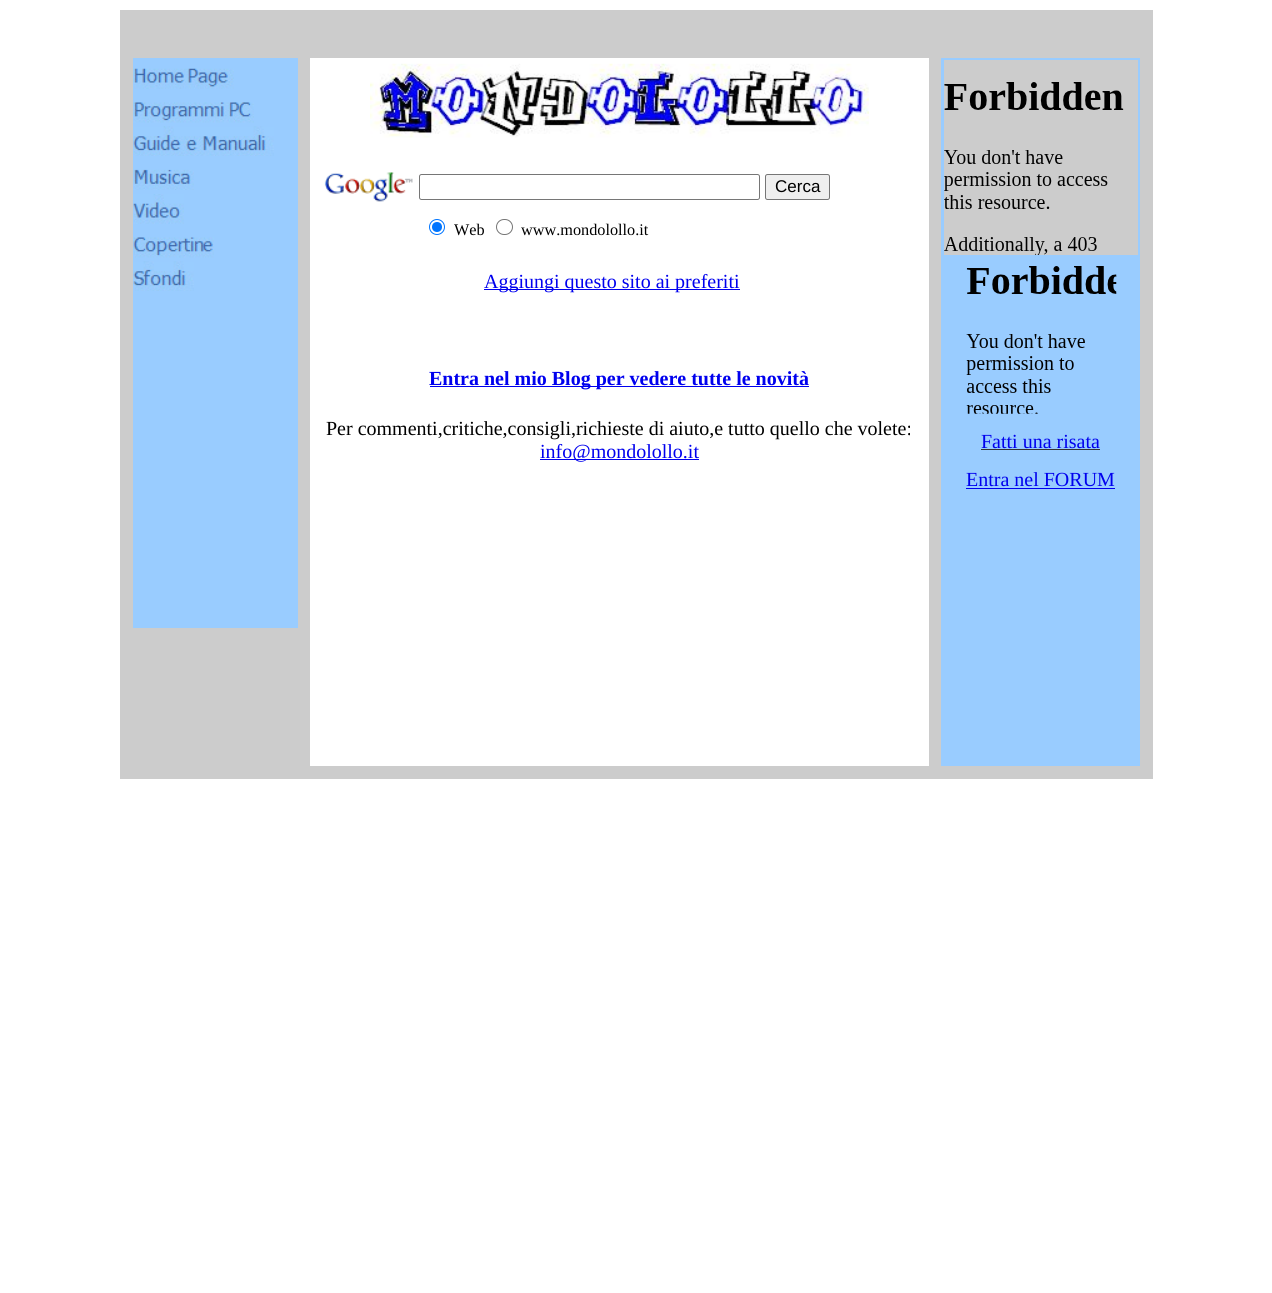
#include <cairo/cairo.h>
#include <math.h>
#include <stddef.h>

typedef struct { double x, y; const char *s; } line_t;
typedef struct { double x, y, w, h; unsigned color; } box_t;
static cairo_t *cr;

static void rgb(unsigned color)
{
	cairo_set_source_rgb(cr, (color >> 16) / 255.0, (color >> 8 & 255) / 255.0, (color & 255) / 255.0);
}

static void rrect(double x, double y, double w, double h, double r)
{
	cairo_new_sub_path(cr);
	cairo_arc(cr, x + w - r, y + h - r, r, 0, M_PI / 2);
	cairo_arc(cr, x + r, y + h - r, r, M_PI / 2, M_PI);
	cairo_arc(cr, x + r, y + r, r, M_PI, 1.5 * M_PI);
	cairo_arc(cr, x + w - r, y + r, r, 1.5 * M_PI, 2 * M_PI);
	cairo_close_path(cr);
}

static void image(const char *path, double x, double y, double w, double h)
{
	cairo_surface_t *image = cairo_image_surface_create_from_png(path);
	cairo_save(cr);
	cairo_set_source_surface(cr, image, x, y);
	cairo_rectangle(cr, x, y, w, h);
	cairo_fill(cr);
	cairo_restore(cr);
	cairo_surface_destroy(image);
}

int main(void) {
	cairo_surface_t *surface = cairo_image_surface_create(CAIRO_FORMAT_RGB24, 1272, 1293);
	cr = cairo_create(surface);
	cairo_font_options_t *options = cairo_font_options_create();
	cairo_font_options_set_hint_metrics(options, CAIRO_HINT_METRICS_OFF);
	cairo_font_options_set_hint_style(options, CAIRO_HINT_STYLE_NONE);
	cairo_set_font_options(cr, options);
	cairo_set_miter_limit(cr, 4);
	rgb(0xffffff);
	cairo_paint(cr);
	rgb(0xcccccc);
	cairo_rectangle(cr, 120, 10, 1033, 769);
	cairo_fill(cr);
	rgb(0x99ccff);
	cairo_rectangle(cr, 133, 58, 165, 570);
	cairo_fill(cr);
	image("img/1.png", 133, 68, 101, 21);
	image("img/2.png", 133, 102, 121, 21);
	image("img/3.png", 133, 126, 141, 30);
	image("img/4.png", 133, 169, 61, 21);
	image("img/5.png", 133, 194, 51, 30);
	image("img/6.png", 133, 237, 81, 21);
	image("img/7.png", 133, 261, 61, 30);
	rgb(0xffffff);
	cairo_rectangle(cr, 310, 58, 619, 708);
	cairo_fill(cr);
	image("img/8.png", 370, 63, 499, 75);
	image("img/9.png", 324, 172, 89, 30);
	rrect(419.5, 174.5, 340, 25, 2);
	rgb(0x767676);
	cairo_set_line_width(cr, 1);
	cairo_stroke(cr);
	rgb(0xefefef);
	rrect(765.5, 174.5, 64, 25, 2);
	cairo_fill_preserve(cr);
	rgb(0x767676);
	cairo_stroke(cr);
	cairo_arc(cr, 437, 227, 7.5, 0, 2 * M_PI);
	rgb(0x0075ff);
	cairo_stroke(cr);
	cairo_arc(cr, 437, 227, 5, 0, 2 * M_PI);
	cairo_fill(cr);
	rrect(496.5, 219.5, 16, 15, 7.5);
	rgb(0x767676);
	cairo_stroke(cr);
	{
		static const box_t items[] = {
			{484, 289, 256, 1, 0x0000ee},
			{430, 386, 379, 1, 0x0000ee},
			{540, 459, 159, 1, 0x0000ee},
			{941, 58, 199, 708, 0x99ccff},
			{944, 60, 194, 195, 0xcccccc},
		};
		for (size_t i = 0; i < sizeof items / sizeof *items; i++) {
			rgb(items[i].color);
			cairo_rectangle(cr, items[i].x, items[i].y, items[i].w, items[i].h);
			cairo_fill(cr);
		}
	}
	image("img/10.png", 944, 82, 180, 173);
	image("img/11.png", 966, 266, 151, 148);
	rgb(0x333333);
	cairo_rectangle(cr, 981, 449, 119, 1);
	cairo_fill(cr);
	rgb(0x0000ee);
	cairo_rectangle(cr, 966, 488, 149, 1);
	cairo_fill(cr);
	cairo_select_font_face(cr, "Liberation Sans", CAIRO_FONT_SLANT_NORMAL, CAIRO_FONT_WEIGHT_NORMAL);
	cairo_set_font_size(cr, 17);
	rgb(0x000000);
	cairo_move_to(cr, 775, 192);
	cairo_show_text(cr, "Cerca");
	cairo_select_font_face(cr, "Liberation Serif", CAIRO_FONT_SLANT_NORMAL, CAIRO_FONT_WEIGHT_NORMAL);
	cairo_set_font_size(cr, 16.25);
	cairo_move_to(cr, 454, 235);
	cairo_show_text(cr, "Web");
	cairo_move_to(cr, 521, 235);
	cairo_show_text(cr, "www.mondolollo.it");
	cairo_set_font_size(cr, 20);
	rgb(0x0000ee);
	cairo_move_to(cr, 484, 288);
	cairo_show_text(cr, "Aggiungi questo sito ai preferiti");
	cairo_select_font_face(cr, "Liberation Serif", CAIRO_FONT_SLANT_NORMAL, CAIRO_FONT_WEIGHT_BOLD);
	cairo_move_to(cr, 429, 385);
	cairo_show_text(cr, "Entra nel mio Blog per vedere tutte le novità");
	cairo_select_font_face(cr, "Liberation Serif", CAIRO_FONT_SLANT_NORMAL, CAIRO_FONT_WEIGHT_NORMAL);
	rgb(0x000000);
	cairo_move_to(cr, 326, 435);
	cairo_show_text(cr, "Per commenti,critiche,consigli,richieste di aiuto,e tutto quello che volete:");
	rgb(0x0000ee);
	{
		static const line_t items[] = {
			{540, 458, "info@mondolollo.it"},
			{981, 448, "Fatti una risata"},
			{966, 486, "Entra nel FORUM"},
		};
		for (size_t i = 0; i < sizeof items / sizeof *items; i++) {
			cairo_move_to(cr, items[i].x, items[i].y);
			cairo_show_text(cr, items[i].s);
		}
	}
	cairo_surface_write_to_png(surface, "page.png");
	cairo_font_options_destroy(options);
	cairo_destroy(cr);
	cairo_surface_destroy(surface);
	return 0;
}
